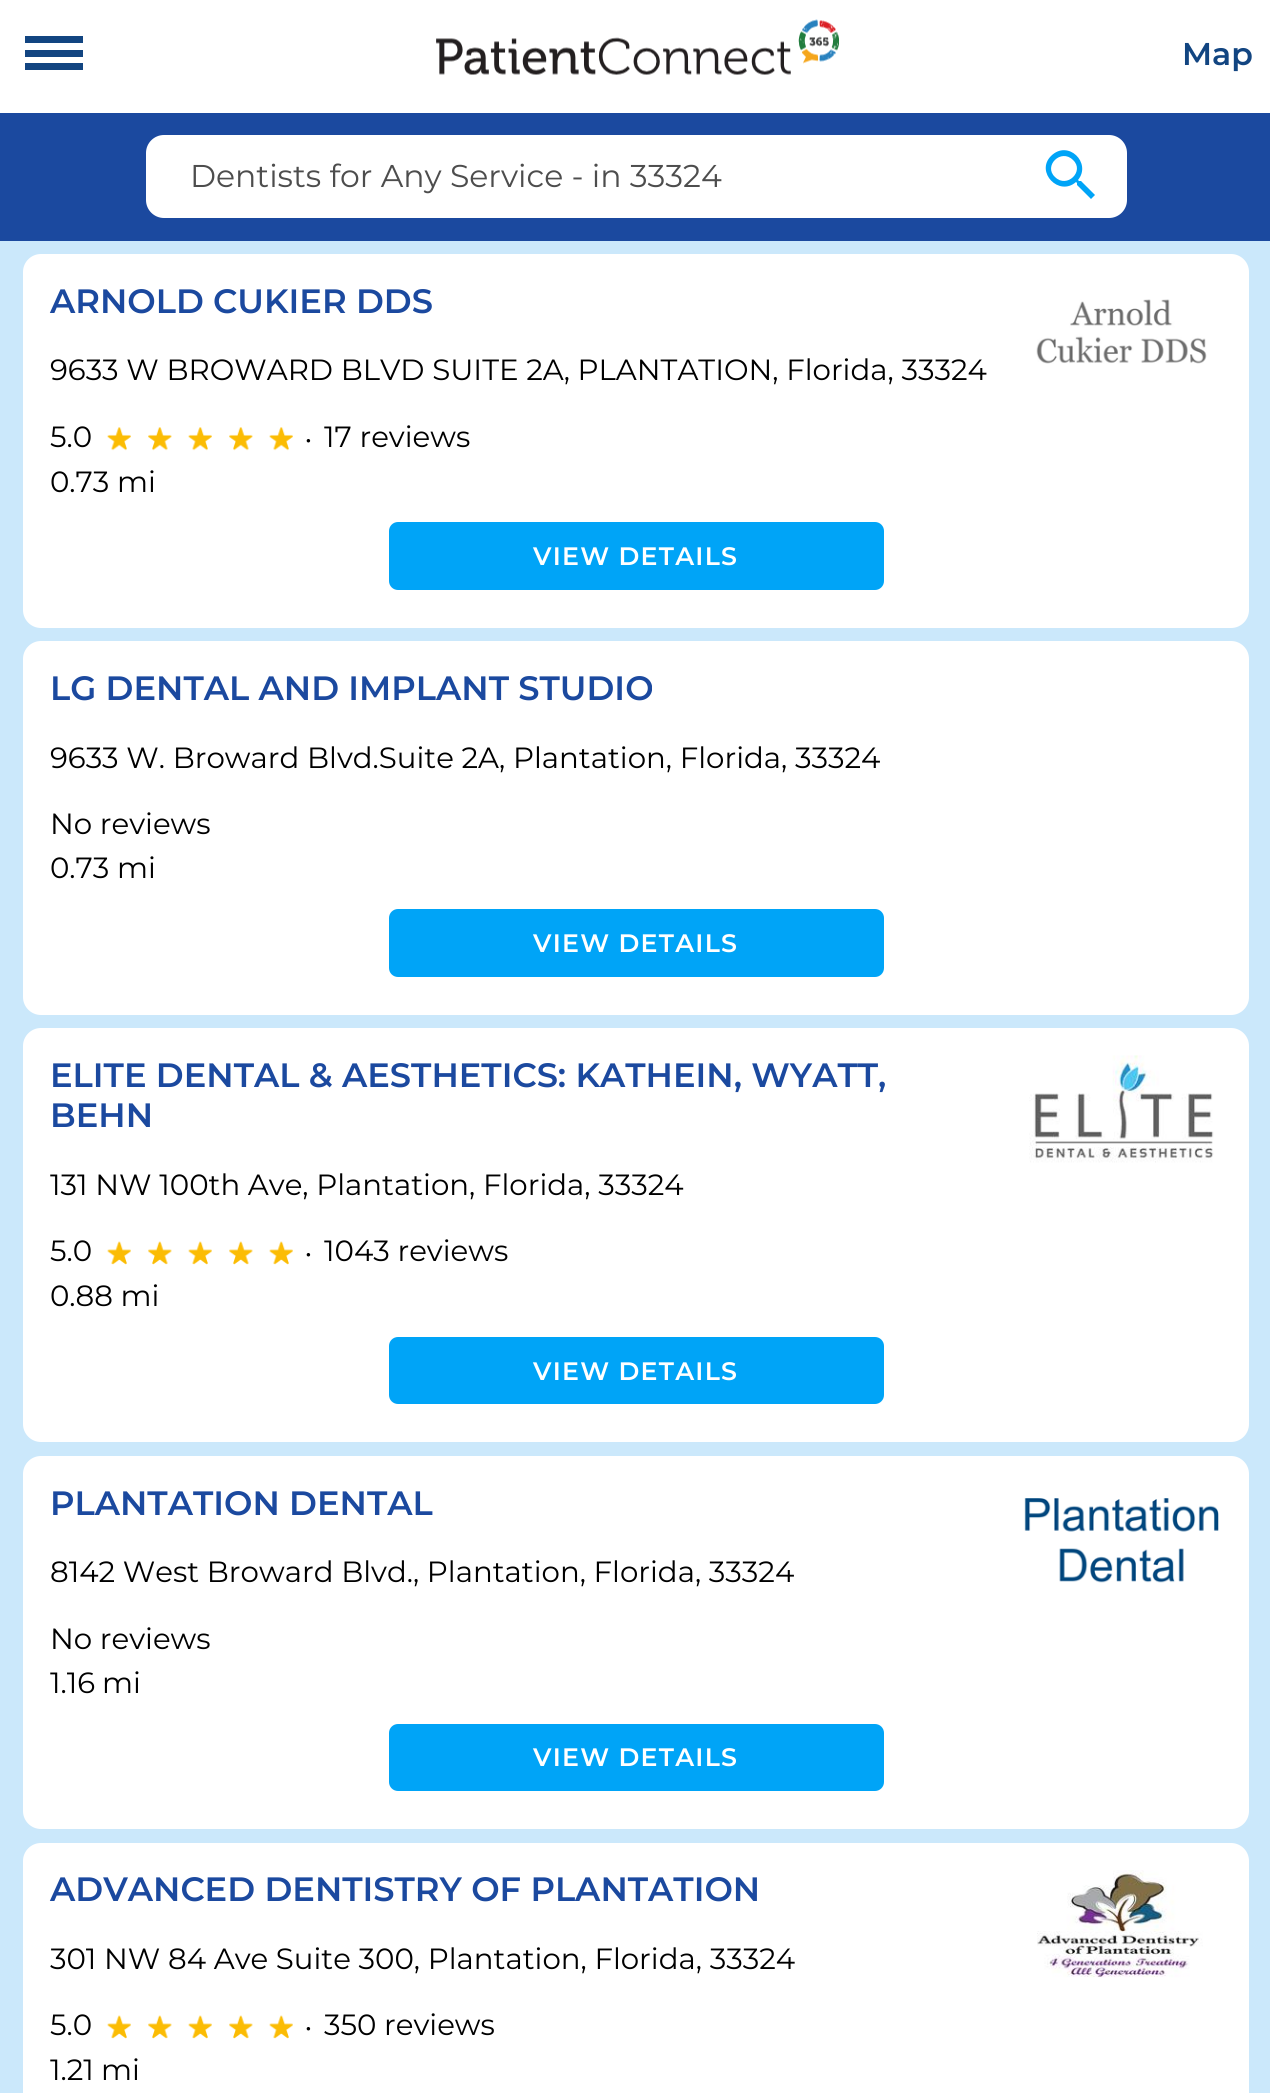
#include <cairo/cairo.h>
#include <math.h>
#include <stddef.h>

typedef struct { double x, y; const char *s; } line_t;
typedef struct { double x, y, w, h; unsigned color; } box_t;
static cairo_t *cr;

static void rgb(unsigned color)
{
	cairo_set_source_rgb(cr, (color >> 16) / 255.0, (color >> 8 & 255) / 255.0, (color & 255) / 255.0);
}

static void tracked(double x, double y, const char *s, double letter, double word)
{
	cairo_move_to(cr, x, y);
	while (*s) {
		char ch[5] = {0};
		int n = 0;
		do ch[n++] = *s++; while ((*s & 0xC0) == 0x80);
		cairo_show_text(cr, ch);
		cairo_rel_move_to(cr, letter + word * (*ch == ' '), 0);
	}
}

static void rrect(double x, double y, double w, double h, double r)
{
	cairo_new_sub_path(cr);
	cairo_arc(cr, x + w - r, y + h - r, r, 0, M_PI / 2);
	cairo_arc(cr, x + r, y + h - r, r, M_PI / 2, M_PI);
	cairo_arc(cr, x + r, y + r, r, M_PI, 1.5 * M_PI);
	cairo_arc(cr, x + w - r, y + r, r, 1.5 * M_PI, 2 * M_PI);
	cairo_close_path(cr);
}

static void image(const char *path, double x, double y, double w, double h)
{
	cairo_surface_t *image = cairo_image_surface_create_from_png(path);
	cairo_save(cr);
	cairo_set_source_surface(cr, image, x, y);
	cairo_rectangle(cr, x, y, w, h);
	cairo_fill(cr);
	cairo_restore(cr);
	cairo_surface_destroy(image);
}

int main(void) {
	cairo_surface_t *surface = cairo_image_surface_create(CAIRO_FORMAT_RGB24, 1270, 2093);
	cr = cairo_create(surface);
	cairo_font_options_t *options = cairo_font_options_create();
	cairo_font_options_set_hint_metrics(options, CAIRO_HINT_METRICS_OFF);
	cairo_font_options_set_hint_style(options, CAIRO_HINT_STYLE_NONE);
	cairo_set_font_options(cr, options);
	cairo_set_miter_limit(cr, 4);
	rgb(0xcbe8fb);
	cairo_paint(cr);
	{
		static const box_t items[] = {
			{0, 0, 1270, 113, 0xffffff},
			{25, 36, 58, 7, 0x124581},
			{25, 50, 58, 7, 0x124581},
			{25, 63, 58, 7, 0x124581},
		};
		for (size_t i = 0; i < sizeof items / sizeof *items; i++) {
			rgb(items[i].color);
			cairo_rectangle(cr, items[i].x, items[i].y, items[i].w, items[i].h);
			cairo_fill(cr);
		}
	}
	image("img/1.png", 436, 19, 403, 56);
	rgb(0x1b499f);
	cairo_rectangle(cr, 0, 113, 1270, 128);
	cairo_fill(cr);
	rgb(0xffffff);
	rrect(146, 135, 981, 83, 18);
	cairo_fill(cr);
	rgb(0x00a4f7);
	cairo_new_path(cr);
	cairo_move_to(cr, 1055, 177);
	cairo_curve_to(cr, 1067, 189, 1085, 171, 1073, 160);
	cairo_curve_to(cr, 1061, 148, 1043, 166, 1055, 177);
	cairo_close_path(cr);
	cairo_move_to(cr, 1081, 181);
	cairo_line_to(cr, 1095, 195);
	cairo_line_to(cr, 1091, 199);
	cairo_line_to(cr, 1077, 185);
	cairo_line_to(cr, 1077, 183);
	cairo_line_to(cr, 1076, 182);
	cairo_curve_to(cr, 1059, 197, 1035, 172, 1051, 156);
	cairo_curve_to(cr, 1068, 139, 1092, 163, 1078, 180);
	cairo_line_to(cr, 1079, 181);
	cairo_close_path(cr);
	cairo_fill(cr);
	rgb(0xffffff);
	rrect(23, 254, 1226, 374, 18);
	cairo_fill(cr);
	image("img/2.png", 1036, 299, 171, 65);
	image("img/3.png", 107, 427, 24, 24);
	image("img/4.png", 148, 427, 24, 24);
	image("img/3.png", 188, 427, 24, 24);
	image("img/5.png", 229, 427, 24, 24);
	image("img/6.png", 269, 427, 24, 24);
	rgb(0x00a4f7);
	rrect(390, 523, 493, 66, 8);
	cairo_fill_preserve(cr);
	cairo_stroke(cr);
	rgb(0xffffff);
	rrect(23, 641, 1226, 374, 18);
	cairo_fill(cr);
	rgb(0x00a4f7);
	rrect(390, 910, 493, 66, 8);
	cairo_fill_preserve(cr);
	cairo_stroke(cr);
	rgb(0xffffff);
	rrect(23, 1028, 1226, 414, 18);
	cairo_fill(cr);
	image("img/7.png", 1029, 1055, 185, 108);
	image("img/8.png", 107, 1241, 24, 24);
	image("img/9.png", 148, 1241, 24, 24);
	image("img/8.png", 188, 1241, 24, 24);
	image("img/10.png", 229, 1241, 24, 24);
	image("img/11.png", 269, 1241, 24, 24);
	rgb(0x00a4f7);
	rrect(390, 1338, 493, 65, 8);
	cairo_fill_preserve(cr);
	cairo_stroke(cr);
	rgb(0xffffff);
	rrect(23, 1456, 1226, 373, 18);
	cairo_fill(cr);
	image("img/12.png", 1024, 1498, 195, 85);
	rgb(0x00a4f7);
	rrect(390, 1725, 493, 65, 8);
	cairo_fill_preserve(cr);
	cairo_stroke(cr);
	rgb(0xffffff);
	rrect(23, 1843, 1226, 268, 18);
	cairo_fill(cr);
	image("img/13.png", 1037, 1870, 166, 108);
	image("img/8.png", 107, 2015, 24, 24);
	image("img/9.png", 148, 2015, 24, 24);
	image("img/8.png", 188, 2015, 24, 24);
	image("img/10.png", 229, 2015, 24, 24);
	image("img/11.png", 269, 2015, 24, 24);
	cairo_select_font_face(cr, "Montserrat SemiBold", CAIRO_FONT_SLANT_NORMAL, CAIRO_FONT_WEIGHT_NORMAL);
	cairo_set_font_size(cr, 31.5);
	rgb(0x124581);
	cairo_move_to(cr, 1182, 65);
	cairo_show_text(cr, "Map");
	cairo_select_font_face(cr, "Montserrat", CAIRO_FONT_SLANT_NORMAL, CAIRO_FONT_WEIGHT_NORMAL);
	rgb(0x4d4d4d);
	cairo_move_to(cr, 190, 187);
	cairo_show_text(cr, "Dentists for Any Service - in 33324");
	cairo_select_font_face(cr, "Montserrat SemiBold", CAIRO_FONT_SLANT_NORMAL, CAIRO_FONT_WEIGHT_NORMAL);
	cairo_set_font_size(cr, 33.75);
	rgb(0x1b499f);
	cairo_move_to(cr, 50, 313);
	cairo_show_text(cr, "ARNOLD CUKIER DDS");
	cairo_select_font_face(cr, "Montserrat", CAIRO_FONT_SLANT_NORMAL, CAIRO_FONT_WEIGHT_NORMAL);
	cairo_set_font_size(cr, 29.25);
	rgb(0x000000);
	cairo_move_to(cr, 50, 380);
	cairo_show_text(cr, "9633 W BROWARD BLVD SUITE 2A, PLANTATION, Florida, 33324");
	cairo_move_to(cr, 50, 447);
	cairo_show_text(cr, "5.0");
	cairo_set_font_size(cr, 23);
	cairo_move_to(cr, 305, 447);
	cairo_show_text(cr, "•");
	cairo_set_font_size(cr, 29.25);
	cairo_move_to(cr, 324, 447);
	cairo_show_text(cr, "17 reviews");
	cairo_move_to(cr, 50, 492);
	cairo_show_text(cr, "0.73 mi");
	cairo_select_font_face(cr, "Montserrat SemiBold", CAIRO_FONT_SLANT_NORMAL, CAIRO_FONT_WEIGHT_NORMAL);
	cairo_set_font_size(cr, 25.25);
	rgb(0xffffff);
	tracked(533, 565, "VIEW DETAILS", 1.25, 0);
	cairo_set_font_size(cr, 33.75);
	rgb(0x1b499f);
	cairo_move_to(cr, 50, 700);
	cairo_show_text(cr, "LG DENTAL AND IMPLANT STUDIO");
	cairo_select_font_face(cr, "Montserrat", CAIRO_FONT_SLANT_NORMAL, CAIRO_FONT_WEIGHT_NORMAL);
	cairo_set_font_size(cr, 29.25);
	rgb(0x000000);
	{
		static const line_t items[] = {
			{50, 768, "9633 W. Broward Blvd.Suite 2A, Plantation, Florida, 33324"},
			{50, 834, "No reviews"},
			{50, 878, "0.73 mi"},
		};
		for (size_t i = 0; i < sizeof items / sizeof *items; i++) {
			cairo_move_to(cr, items[i].x, items[i].y);
			cairo_show_text(cr, items[i].s);
		}
	}
	cairo_select_font_face(cr, "Montserrat SemiBold", CAIRO_FONT_SLANT_NORMAL, CAIRO_FONT_WEIGHT_NORMAL);
	cairo_set_font_size(cr, 25.25);
	rgb(0xffffff);
	tracked(533, 952, "VIEW DETAILS", 1.25, 0);
	cairo_set_font_size(cr, 33.75);
	rgb(0x1b499f);
	cairo_move_to(cr, 50, 1087);
	cairo_show_text(cr, "ELITE DENTAL & AESTHETICS: KATHEIN, WYATT,");
	cairo_move_to(cr, 50, 1127);
	cairo_show_text(cr, "BEHN");
	cairo_save(cr);
	cairo_rectangle(cr, 50, 1055, 1172, 169);
	cairo_clip(cr);
	cairo_select_font_face(cr, "Montserrat", CAIRO_FONT_SLANT_NORMAL, CAIRO_FONT_WEIGHT_NORMAL);
	cairo_set_font_size(cr, 29.25);
	rgb(0x000000);
	cairo_move_to(cr, 50, 1195);
	cairo_show_text(cr, "131 NW 100th Ave, Plantation, Florida, 33324");
	cairo_restore(cr);
	cairo_select_font_face(cr, "Montserrat", CAIRO_FONT_SLANT_NORMAL, CAIRO_FONT_WEIGHT_NORMAL);
	cairo_set_font_size(cr, 29.25);
	rgb(0x000000);
	cairo_move_to(cr, 50, 1261);
	cairo_show_text(cr, "5.0");
	cairo_set_font_size(cr, 23);
	cairo_move_to(cr, 305, 1261);
	cairo_show_text(cr, "•");
	cairo_set_font_size(cr, 29.25);
	cairo_move_to(cr, 324, 1261);
	cairo_show_text(cr, "1043 reviews");
	cairo_move_to(cr, 50, 1306);
	cairo_show_text(cr, "0.88 mi");
	cairo_select_font_face(cr, "Montserrat SemiBold", CAIRO_FONT_SLANT_NORMAL, CAIRO_FONT_WEIGHT_NORMAL);
	cairo_set_font_size(cr, 25.25);
	rgb(0xffffff);
	tracked(533, 1380, "VIEW DETAILS", 1.25, 0);
	cairo_set_font_size(cr, 33.75);
	rgb(0x1b499f);
	cairo_move_to(cr, 50, 1515);
	cairo_show_text(cr, "PLANTATION DENTAL");
	cairo_select_font_face(cr, "Montserrat", CAIRO_FONT_SLANT_NORMAL, CAIRO_FONT_WEIGHT_NORMAL);
	cairo_set_font_size(cr, 29.25);
	rgb(0x000000);
	cairo_move_to(cr, 50, 1582);
	cairo_show_text(cr, "8142 West Broward Blvd., Plantation, Florida, 33324");
	cairo_move_to(cr, 50, 1649);
	cairo_show_text(cr, "No reviews");
	cairo_save(cr);
	cairo_rectangle(cr, 50, 1622, 1172, 79);
	cairo_clip(cr);
	cairo_move_to(cr, 50, 1693);
	cairo_show_text(cr, "1.16");
	cairo_restore(cr);
	cairo_move_to(cr, 102, 1693);
	cairo_show_text(cr, "mi");
	cairo_select_font_face(cr, "Montserrat SemiBold", CAIRO_FONT_SLANT_NORMAL, CAIRO_FONT_WEIGHT_NORMAL);
	cairo_set_font_size(cr, 25.25);
	rgb(0xffffff);
	tracked(533, 1766, "VIEW DETAILS", 1.25, 0);
	cairo_set_font_size(cr, 33.75);
	rgb(0x1b499f);
	cairo_move_to(cr, 50, 1901);
	cairo_show_text(cr, "ADVANCED DENTISTRY OF PLANTATION");
	cairo_select_font_face(cr, "Montserrat", CAIRO_FONT_SLANT_NORMAL, CAIRO_FONT_WEIGHT_NORMAL);
	cairo_set_font_size(cr, 29.25);
	rgb(0x000000);
	cairo_move_to(cr, 50, 1969);
	cairo_show_text(cr, "301 NW 84 Ave Suite 300, Plantation, Florida, 33324");
	cairo_move_to(cr, 50, 2035);
	cairo_show_text(cr, "5.0");
	cairo_set_font_size(cr, 23);
	cairo_move_to(cr, 305, 2035);
	cairo_show_text(cr, "•");
	cairo_set_font_size(cr, 29.25);
	cairo_move_to(cr, 324, 2035);
	cairo_show_text(cr, "350 reviews");
	cairo_save(cr);
	cairo_rectangle(cr, 50, 2009, 1172, 79);
	cairo_clip(cr);
	cairo_move_to(cr, 50, 2080);
	cairo_show_text(cr, "1.21");
	cairo_restore(cr);
	cairo_move_to(cr, 101, 2080);
	cairo_show_text(cr, "mi");
	cairo_surface_write_to_png(surface, "page.png");
	cairo_font_options_destroy(options);
	cairo_destroy(cr);
	cairo_surface_destroy(surface);
	return 0;
}
